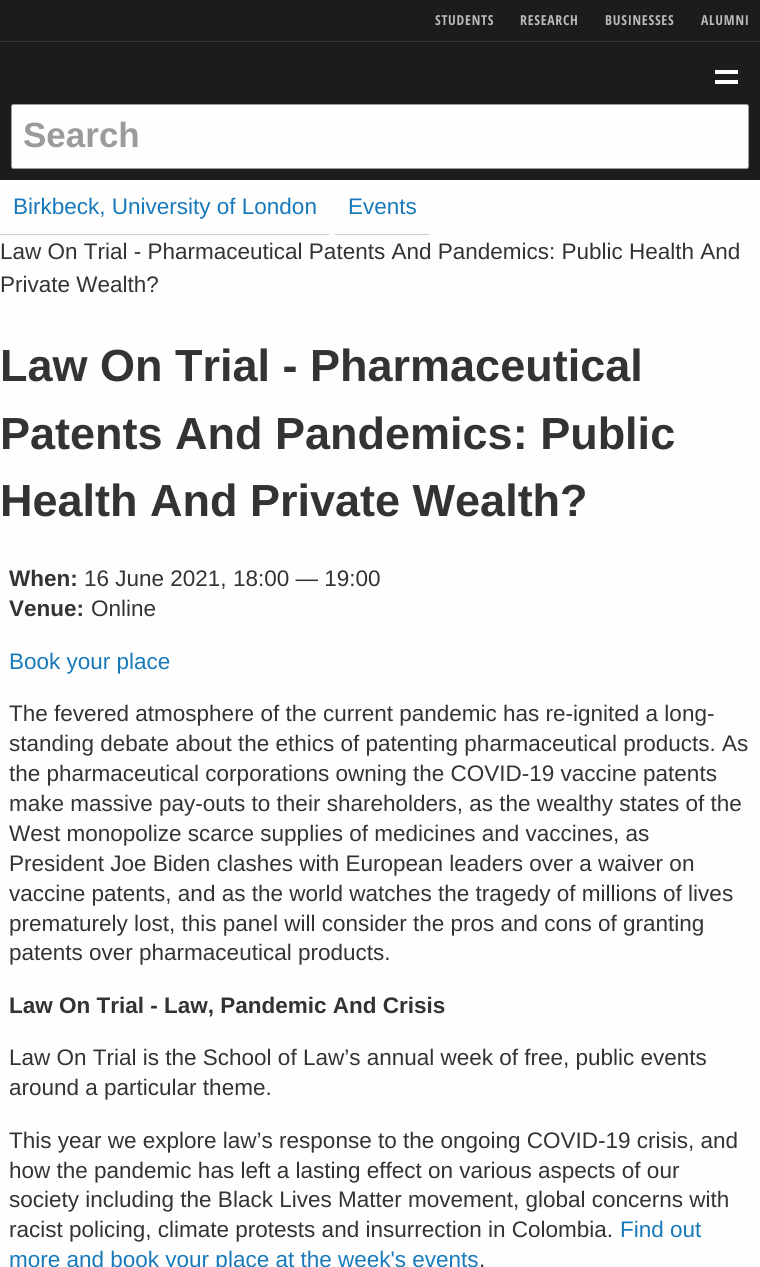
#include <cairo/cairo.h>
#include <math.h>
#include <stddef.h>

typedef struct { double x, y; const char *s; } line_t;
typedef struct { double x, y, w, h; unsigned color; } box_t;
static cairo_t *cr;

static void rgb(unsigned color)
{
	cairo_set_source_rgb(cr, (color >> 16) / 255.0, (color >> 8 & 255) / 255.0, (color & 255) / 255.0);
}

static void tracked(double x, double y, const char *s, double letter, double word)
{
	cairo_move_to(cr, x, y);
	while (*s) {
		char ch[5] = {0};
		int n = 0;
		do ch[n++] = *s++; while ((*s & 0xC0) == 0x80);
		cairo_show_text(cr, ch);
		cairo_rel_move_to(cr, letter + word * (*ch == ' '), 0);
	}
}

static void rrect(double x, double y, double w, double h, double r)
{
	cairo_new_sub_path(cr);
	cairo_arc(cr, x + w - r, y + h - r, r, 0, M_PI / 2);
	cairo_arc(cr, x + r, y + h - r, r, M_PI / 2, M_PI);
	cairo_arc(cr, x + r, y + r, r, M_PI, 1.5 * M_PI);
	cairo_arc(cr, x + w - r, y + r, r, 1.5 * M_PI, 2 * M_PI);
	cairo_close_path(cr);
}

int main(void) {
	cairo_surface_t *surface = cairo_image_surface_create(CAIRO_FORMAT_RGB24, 760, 1267);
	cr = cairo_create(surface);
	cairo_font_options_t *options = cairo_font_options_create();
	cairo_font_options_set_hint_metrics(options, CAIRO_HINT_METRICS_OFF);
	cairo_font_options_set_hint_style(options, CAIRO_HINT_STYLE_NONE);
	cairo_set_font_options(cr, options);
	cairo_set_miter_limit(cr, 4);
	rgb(0x1c1c1c);
	cairo_paint(cr);
	{
		static const box_t items[] = {
			{0, 41, 760, 1, 0x333333},
			{715, 70, 23, 4, 0xfefefe},
			{715, 80, 23, 4, 0xfefefe},
		};
		for (size_t i = 0; i < sizeof items / sizeof *items; i++) {
			rgb(items[i].color);
			cairo_rectangle(cr, items[i].x, items[i].y, items[i].w, items[i].h);
			cairo_fill(cr);
		}
	}
	rrect(11.5, 104.5, 737, 64, 2);
	cairo_fill_preserve(cr);
	rgb(0x9b9b9b);
	cairo_set_line_width(cr, 1);
	cairo_stroke(cr);
	{
		static const box_t items[] = {
			{0, 180, 760, 1087, 0xfefefe},
			{0, 234, 329, 1, 0xcdcdcd},
			{335, 234, 94, 1, 0xcdcdcd},
		};
		for (size_t i = 0; i < sizeof items / sizeof *items; i++) {
			rgb(items[i].color);
			cairo_rectangle(cr, items[i].x, items[i].y, items[i].w, items[i].h);
			cairo_fill(cr);
		}
	}
	cairo_select_font_face(cr, "Open Sans Condensed", CAIRO_FONT_SLANT_NORMAL, CAIRO_FONT_WEIGHT_BOLD);
	cairo_set_font_size(cr, 13.75);
	rgb(0xbababa);
	{
		static const line_t items[] = {
			{435, 25, "STUDENTS"},
			{520, 25, "RESEARCH"},
			{605, 25, "BUSINESSES"},
			{701, 25, "ALUMNI"},
		};
		for (size_t i = 0; i < sizeof items / sizeof *items; i++) {
			tracked(items[i].x, items[i].y, items[i].s, 0.75, 0);
		}
	}
	cairo_select_font_face(cr, "Liberation Sans", CAIRO_FONT_SLANT_NORMAL, CAIRO_FONT_WEIGHT_BOLD);
	cairo_set_font_size(cr, 35);
	rgb(0x9b9b9b);
	cairo_move_to(cr, 23, 147);
	cairo_show_text(cr, "Search");
	cairo_select_font_face(cr, "Liberation Sans", CAIRO_FONT_SLANT_NORMAL, CAIRO_FONT_WEIGHT_NORMAL);
	cairo_set_font_size(cr, 22.5);
	rgb(0x1779ba);
	cairo_move_to(cr, 13, 214);
	cairo_show_text(cr, "Birkbeck, University of London");
	cairo_move_to(cr, 348, 214);
	cairo_show_text(cr, "Events");
	rgb(0x333333);
	cairo_move_to(cr, 0, 259);
	cairo_show_text(cr, "Law On Trial - Pharmaceutical Patents And Pandemics: Public Health And");
	cairo_move_to(cr, 0, 292);
	cairo_show_text(cr, "Private Wealth?");
	cairo_select_font_face(cr, "Liberation Sans", CAIRO_FONT_SLANT_NORMAL, CAIRO_FONT_WEIGHT_BOLD);
	cairo_set_font_size(cr, 45);
	{
		static const line_t items[] = {
			{0, 381, "Law On Trial - Pharmaceutical"},
			{0, 449, "Patents And Pandemics: Public"},
			{0, 516, "Health And Private Wealth?"},
		};
		for (size_t i = 0; i < sizeof items / sizeof *items; i++) {
			cairo_move_to(cr, items[i].x, items[i].y);
			cairo_show_text(cr, items[i].s);
		}
	}
	cairo_set_font_size(cr, 22.5);
	cairo_move_to(cr, 9, 586);
	cairo_show_text(cr, "When:");
	cairo_select_font_face(cr, "Liberation Sans", CAIRO_FONT_SLANT_NORMAL, CAIRO_FONT_WEIGHT_NORMAL);
	cairo_move_to(cr, 84, 586);
	cairo_show_text(cr, "16 June 2021, 18:00 — 19:00");
	cairo_select_font_face(cr, "Liberation Sans", CAIRO_FONT_SLANT_NORMAL, CAIRO_FONT_WEIGHT_BOLD);
	cairo_move_to(cr, 9, 616);
	cairo_show_text(cr, "Venue:");
	cairo_select_font_face(cr, "Liberation Sans", CAIRO_FONT_SLANT_NORMAL, CAIRO_FONT_WEIGHT_NORMAL);
	cairo_move_to(cr, 91, 616);
	cairo_show_text(cr, "Online");
	rgb(0x1779ba);
	cairo_move_to(cr, 9, 669);
	cairo_show_text(cr, "Book your place");
	rgb(0x333333);
	{
		static const line_t items[] = {
			{9, 721, "The fevered atmosphere of the current pandemic has re-ignited a long-"},
			{9, 751, "standing debate about the ethics of patenting pharmaceutical products. As"},
			{9, 781, "the pharmaceutical corporations owning the COVID-19 vaccine patents"},
			{9, 811, "make massive pay-outs to their shareholders, as the wealthy states of the"},
			{9, 841, "West monopolize scarce supplies of medicines and vaccines, as"},
			{9, 871, "President Joe Biden clashes with European leaders over a waiver on"},
			{9, 901, "vaccine patents, and as the world watches the tragedy of millions of lives"},
			{9, 931, "prematurely lost, this panel will consider the pros and cons of granting"},
			{9, 960, "patents over pharmaceutical products."},
		};
		for (size_t i = 0; i < sizeof items / sizeof *items; i++) {
			cairo_move_to(cr, items[i].x, items[i].y);
			cairo_show_text(cr, items[i].s);
		}
	}
	cairo_select_font_face(cr, "Liberation Sans", CAIRO_FONT_SLANT_NORMAL, CAIRO_FONT_WEIGHT_BOLD);
	cairo_move_to(cr, 9, 1013);
	cairo_show_text(cr, "Law On Trial - Law, Pandemic And Crisis");
	cairo_select_font_face(cr, "Liberation Sans", CAIRO_FONT_SLANT_NORMAL, CAIRO_FONT_WEIGHT_NORMAL);
	{
		static const line_t items[] = {
			{9, 1065, "Law On Trial is the School of Law’s annual week of free, public events"},
			{9, 1095, "around a particular theme."},
			{9, 1148, "This year we explore law’s response to the ongoing COVID-19 crisis, and"},
			{9, 1178, "how the pandemic has left a lasting effect on various aspects of our"},
			{9, 1207, "society including the Black Lives Matter movement, global concerns with"},
			{9, 1237, "racist policing, climate protests and insurrection in Colombia."},
		};
		for (size_t i = 0; i < sizeof items / sizeof *items; i++) {
			cairo_move_to(cr, items[i].x, items[i].y);
			cairo_show_text(cr, items[i].s);
		}
	}
	rgb(0x1779ba);
	cairo_move_to(cr, 620, 1237);
	cairo_show_text(cr, "Find out");
	cairo_move_to(cr, 9, 1267);
	cairo_show_text(cr, "more and book your place at the week's events");
	rgb(0x333333);
	cairo_move_to(cr, 479, 1267);
	cairo_show_text(cr, ".");
	cairo_surface_write_to_png(surface, "page.png");
	cairo_font_options_destroy(options);
	cairo_destroy(cr);
	cairo_surface_destroy(surface);
	return 0;
}
